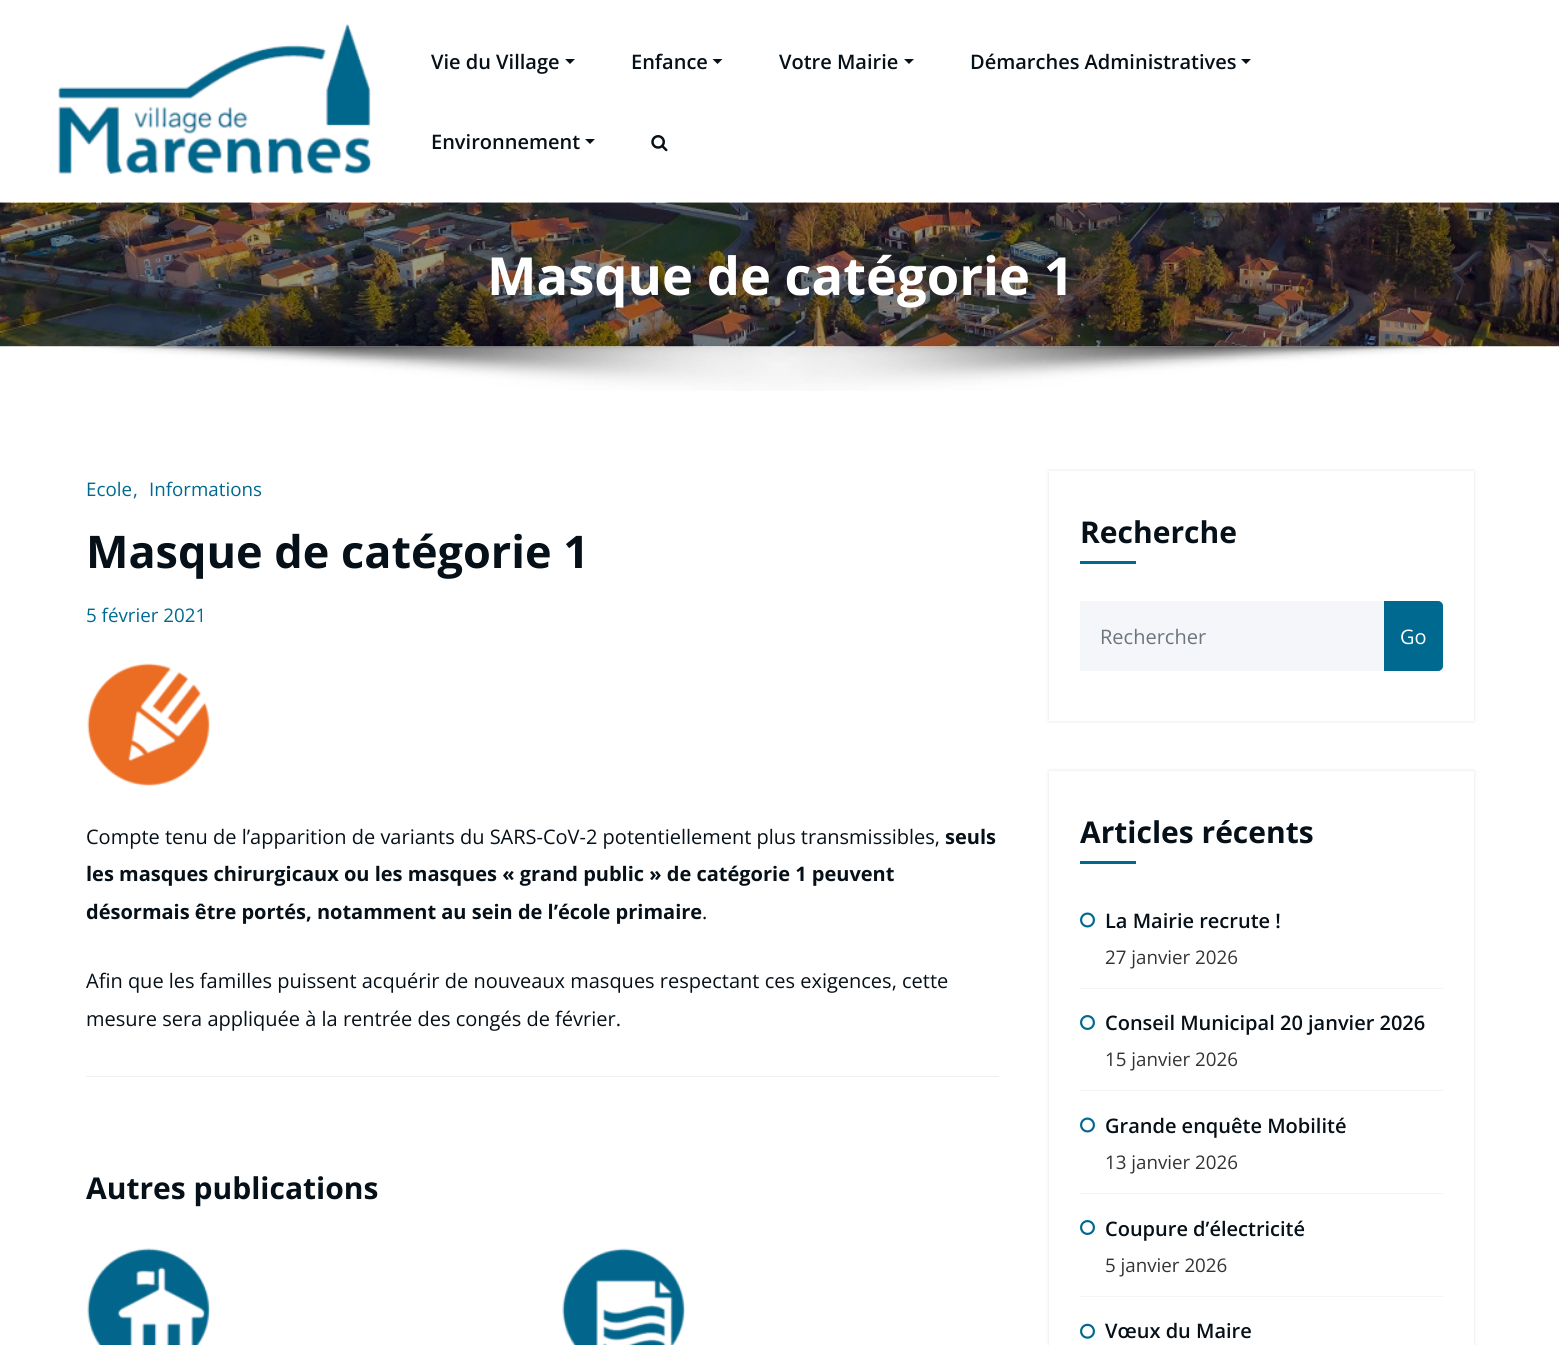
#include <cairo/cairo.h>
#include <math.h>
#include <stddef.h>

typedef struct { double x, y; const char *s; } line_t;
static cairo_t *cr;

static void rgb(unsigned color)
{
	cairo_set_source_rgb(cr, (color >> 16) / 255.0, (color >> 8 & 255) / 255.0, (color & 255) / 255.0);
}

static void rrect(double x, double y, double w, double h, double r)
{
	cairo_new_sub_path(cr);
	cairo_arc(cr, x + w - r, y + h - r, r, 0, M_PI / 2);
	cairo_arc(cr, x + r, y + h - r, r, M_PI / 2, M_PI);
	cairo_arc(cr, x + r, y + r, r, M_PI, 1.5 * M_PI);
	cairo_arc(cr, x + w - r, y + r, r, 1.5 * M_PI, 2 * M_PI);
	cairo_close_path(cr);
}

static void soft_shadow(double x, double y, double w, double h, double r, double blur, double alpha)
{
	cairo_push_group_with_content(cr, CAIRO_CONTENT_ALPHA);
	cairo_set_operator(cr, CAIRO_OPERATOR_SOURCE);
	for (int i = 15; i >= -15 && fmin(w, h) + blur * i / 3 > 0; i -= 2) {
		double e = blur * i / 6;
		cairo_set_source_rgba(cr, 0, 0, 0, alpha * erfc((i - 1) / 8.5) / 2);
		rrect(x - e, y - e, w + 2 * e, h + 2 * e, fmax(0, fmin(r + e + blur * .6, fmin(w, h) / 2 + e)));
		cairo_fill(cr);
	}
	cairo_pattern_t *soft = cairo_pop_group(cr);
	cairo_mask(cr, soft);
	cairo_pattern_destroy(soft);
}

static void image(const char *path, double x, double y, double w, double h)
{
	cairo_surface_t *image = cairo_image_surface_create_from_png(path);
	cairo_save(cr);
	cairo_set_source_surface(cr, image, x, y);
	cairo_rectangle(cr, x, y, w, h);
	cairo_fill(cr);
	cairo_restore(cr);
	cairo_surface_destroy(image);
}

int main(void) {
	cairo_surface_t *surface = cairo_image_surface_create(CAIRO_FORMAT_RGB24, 1559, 1345);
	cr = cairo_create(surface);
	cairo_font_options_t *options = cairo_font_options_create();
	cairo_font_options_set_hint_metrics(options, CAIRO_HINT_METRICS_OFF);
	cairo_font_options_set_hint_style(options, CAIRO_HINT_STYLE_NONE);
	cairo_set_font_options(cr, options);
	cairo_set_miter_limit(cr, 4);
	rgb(0xffffff);
	cairo_paint(cr);
	image("img/1.png", 58, 23, 314, 151);
	rgb(0x061018);
	cairo_new_path(cr);
	cairo_move_to(cr, 565, 59);
	cairo_line_to(cr, 575, 59);
	cairo_line_to(cr, 570, 64);
	cairo_close_path(cr);
	cairo_fill(cr);
	cairo_new_path(cr);
	cairo_move_to(cr, 712.5, 59);
	cairo_line_to(cr, 722.5, 59);
	cairo_line_to(cr, 717.5, 64);
	cairo_close_path(cr);
	cairo_fill(cr);
	cairo_new_path(cr);
	cairo_move_to(cr, 904, 59);
	cairo_line_to(cr, 914, 59);
	cairo_line_to(cr, 909, 64);
	cairo_close_path(cr);
	cairo_fill(cr);
	cairo_new_path(cr);
	cairo_move_to(cr, 1241, 59);
	cairo_line_to(cr, 1251, 59);
	cairo_line_to(cr, 1246, 64);
	cairo_close_path(cr);
	cairo_fill(cr);
	cairo_new_path(cr);
	cairo_move_to(cr, 585, 139);
	cairo_line_to(cr, 595, 139);
	cairo_line_to(cr, 590, 144);
	cairo_close_path(cr);
	cairo_fill(cr);
	image("img/2.png", 651, 135, 17, 17);
	image("img/3.png", 0, 202, 1559, 145);
	image("img/4.png", 81, 346, 1397, 45);
	image("img/5.png", 87, 663, 123, 124);
	rgb(0xeceff3);
	cairo_rectangle(cr, 86, 1076, 913, 1);
	cairo_fill(cr);
	image("img/6.png", 87, 1248, 123, 97);
	image("img/7.png", 562, 1248, 123, 97);
	cairo_save(cr);
	cairo_set_fill_rule(cr, CAIRO_FILL_RULE_EVEN_ODD);
	cairo_new_path(cr);
	cairo_move_to(cr, 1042, 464);
	cairo_line_to(cr, 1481, 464);
	cairo_line_to(cr, 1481, 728);
	cairo_line_to(cr, 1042, 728);
	cairo_close_path(cr);
	cairo_move_to(cr, 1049, 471);
	cairo_line_to(cr, 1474, 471);
	cairo_line_to(cr, 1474, 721);
	cairo_line_to(cr, 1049, 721);
	cairo_close_path(cr);
	cairo_clip(cr);
	rgb(0x000000);
	soft_shadow(1049, 471, 425, 250, 0, 2, 0.11);
	cairo_restore(cr);
	rgb(0x00698f);
	cairo_rectangle(cr, 1080, 561, 56, 3);
	cairo_fill(cr);
	rgb(0xf5f6fa);
	cairo_rectangle(cr, 1080, 601, 304, 70);
	cairo_fill(cr);
	rgb(0x00698f);
	cairo_new_path(cr);
	cairo_move_to(cr, 1384.5, 601.5);
	cairo_line_to(cr, 1438, 601.5);
	cairo_curve_to(cr, 1440.5, 601.5, 1442.5, 603.5, 1442.5, 606);
	cairo_line_to(cr, 1442.5, 666);
	cairo_curve_to(cr, 1442.5, 668.5, 1440.5, 670.5, 1438, 670.5);
	cairo_line_to(cr, 1384.5, 670.5);
	cairo_close_path(cr);
	cairo_fill_preserve(cr);
	cairo_set_line_width(cr, 1);
	cairo_stroke(cr);
	cairo_save(cr);
	cairo_set_fill_rule(cr, CAIRO_FILL_RULE_EVEN_ODD);
	cairo_new_path(cr);
	cairo_move_to(cr, 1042, 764);
	cairo_line_to(cr, 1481, 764);
	cairo_line_to(cr, 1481, 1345);
	cairo_line_to(cr, 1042, 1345);
	cairo_close_path(cr);
	cairo_move_to(cr, 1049, 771);
	cairo_line_to(cr, 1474, 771);
	cairo_line_to(cr, 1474, 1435);
	cairo_line_to(cr, 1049, 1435);
	cairo_close_path(cr);
	cairo_clip(cr);
	rgb(0x000000);
	soft_shadow(1049, 771, 425, 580, 0, 2, 0.11);
	cairo_restore(cr);
	cairo_rectangle(cr, 1080, 861, 56, 3);
	cairo_fill(cr);
	rgb(0xf4f4f4);
	cairo_rectangle(cr, 1080, 988, 363, 1);
	cairo_fill(cr);
	image("img/8.png", 1080, 912, 15, 16);
	cairo_rectangle(cr, 1080, 1090, 363, 1);
	cairo_fill(cr);
	image("img/9.png", 1080, 1015, 15, 15);
	cairo_rectangle(cr, 1080, 1193, 363, 1);
	cairo_fill(cr);
	image("img/8.png", 1080, 1117, 15, 16);
	cairo_rectangle(cr, 1080, 1296, 363, 1);
	cairo_fill(cr);
	image("img/9.png", 1080, 1220, 15, 15);
	image("img/10.png", 1080, 1323, 15, 16);
	cairo_select_font_face(cr, "Open Sans SemiBold", CAIRO_FONT_SLANT_NORMAL, CAIRO_FONT_WEIGHT_NORMAL);
	cairo_set_font_size(cr, 20);
	rgb(0x061018);
	{
		static const line_t items[] = {
			{431, 69, "Vie du Village"},
			{631, 69, "Enfance"},
			{779, 69, "Votre Mairie"},
			{970, 69, "Démarches Administratives"},
			{431, 149, "Environnement"},
		};
		for (size_t i = 0; i < sizeof items / sizeof *items; i++) {
			cairo_move_to(cr, items[i].x, items[i].y);
			cairo_show_text(cr, items[i].s);
		}
	}
	cairo_select_font_face(cr, "Open Sans", CAIRO_FONT_SLANT_NORMAL, CAIRO_FONT_WEIGHT_BOLD);
	cairo_set_font_size(cr, 52.5);
	rgb(0xffffff);
	cairo_move_to(cr, 487, 295);
	cairo_show_text(cr, "Masque de catégorie 1");
	cairo_select_font_face(cr, "Open Sans", CAIRO_FONT_SLANT_NORMAL, CAIRO_FONT_WEIGHT_NORMAL);
	cairo_set_font_size(cr, 18.75);
	rgb(0x00698f);
	{
		static const line_t items[] = {
			{86, 496, "Ecole"},
			{133, 496, ","},
			{149, 496, "Informations"},
		};
		for (size_t i = 0; i < sizeof items / sizeof *items; i++) {
			cairo_move_to(cr, items[i].x, items[i].y);
			cairo_show_text(cr, items[i].s);
		}
	}
	cairo_select_font_face(cr, "Open Sans", CAIRO_FONT_SLANT_NORMAL, CAIRO_FONT_WEIGHT_BOLD);
	cairo_set_font_size(cr, 45);
	rgb(0x061018);
	cairo_move_to(cr, 86, 568);
	cairo_show_text(cr, "Masque de catégorie 1");
	cairo_select_font_face(cr, "Open Sans", CAIRO_FONT_SLANT_NORMAL, CAIRO_FONT_WEIGHT_NORMAL);
	cairo_set_font_size(cr, 18.75);
	rgb(0x00698f);
	cairo_move_to(cr, 86, 622);
	cairo_show_text(cr, "5 février 2021");
	cairo_set_font_size(cr, 20);
	rgb(0x061018);
	cairo_move_to(cr, 86, 844);
	cairo_show_text(cr, "Compte tenu de l’apparition de variants du SARS-CoV-2 potentiellement plus transmissibles,");
	cairo_select_font_face(cr, "Open Sans", CAIRO_FONT_SLANT_NORMAL, CAIRO_FONT_WEIGHT_BOLD);
	{
		static const line_t items[] = {
			{945, 844, "seuls"},
			{86, 881, "les masques chirurgicaux ou les masques « grand public » de catégorie 1 peuvent"},
			{86, 919, "désormais être portés, notamment au sein de l’école primaire"},
		};
		for (size_t i = 0; i < sizeof items / sizeof *items; i++) {
			cairo_move_to(cr, items[i].x, items[i].y);
			cairo_show_text(cr, items[i].s);
		}
	}
	cairo_select_font_face(cr, "Open Sans", CAIRO_FONT_SLANT_NORMAL, CAIRO_FONT_WEIGHT_NORMAL);
	{
		static const line_t items[] = {
			{702, 919, "."},
			{86, 988, "Afin que les familles puissent acquérir de nouveaux masques respectant ces exigences, cette"},
			{86, 1026, "mesure sera appliquée à la rentrée des congés de février."},
		};
		for (size_t i = 0; i < sizeof items / sizeof *items; i++) {
			cairo_move_to(cr, items[i].x, items[i].y);
			cairo_show_text(cr, items[i].s);
		}
	}
	cairo_select_font_face(cr, "Open Sans", CAIRO_FONT_SLANT_NORMAL, CAIRO_FONT_WEIGHT_BOLD);
	cairo_set_font_size(cr, 30);
	cairo_move_to(cr, 86, 1199);
	cairo_show_text(cr, "Autres publications");
	cairo_move_to(cr, 1080, 543);
	cairo_show_text(cr, "Recherche");
	cairo_select_font_face(cr, "Open Sans", CAIRO_FONT_SLANT_NORMAL, CAIRO_FONT_WEIGHT_NORMAL);
	cairo_set_font_size(cr, 20);
	rgb(0x6c757d);
	cairo_move_to(cr, 1100, 644);
	cairo_show_text(cr, "Rechercher");
	rgb(0xffffff);
	cairo_move_to(cr, 1400, 644);
	cairo_show_text(cr, "Go");
	cairo_select_font_face(cr, "Open Sans", CAIRO_FONT_SLANT_NORMAL, CAIRO_FONT_WEIGHT_BOLD);
	cairo_set_font_size(cr, 30);
	rgb(0x061018);
	cairo_move_to(cr, 1080, 843);
	cairo_show_text(cr, "Articles récents");
	cairo_select_font_face(cr, "Open Sans SemiBold", CAIRO_FONT_SLANT_NORMAL, CAIRO_FONT_WEIGHT_NORMAL);
	cairo_set_font_size(cr, 20);
	cairo_move_to(cr, 1105, 928);
	cairo_show_text(cr, "La Mairie recrute !");
	cairo_select_font_face(cr, "Open Sans", CAIRO_FONT_SLANT_NORMAL, CAIRO_FONT_WEIGHT_NORMAL);
	cairo_set_font_size(cr, 18.75);
	rgb(0x333333);
	cairo_move_to(cr, 1105, 964);
	cairo_show_text(cr, "27 janvier 2026");
	cairo_select_font_face(cr, "Open Sans SemiBold", CAIRO_FONT_SLANT_NORMAL, CAIRO_FONT_WEIGHT_NORMAL);
	cairo_set_font_size(cr, 20);
	rgb(0x061018);
	cairo_move_to(cr, 1105, 1030);
	cairo_show_text(cr, "Conseil Municipal 20 janvier 2026");
	cairo_select_font_face(cr, "Open Sans", CAIRO_FONT_SLANT_NORMAL, CAIRO_FONT_WEIGHT_NORMAL);
	cairo_set_font_size(cr, 18.75);
	rgb(0x333333);
	cairo_move_to(cr, 1105, 1066);
	cairo_show_text(cr, "15 janvier 2026");
	cairo_select_font_face(cr, "Open Sans SemiBold", CAIRO_FONT_SLANT_NORMAL, CAIRO_FONT_WEIGHT_NORMAL);
	cairo_set_font_size(cr, 20);
	rgb(0x061018);
	cairo_move_to(cr, 1105, 1133);
	cairo_show_text(cr, "Grande enquête Mobilité");
	cairo_select_font_face(cr, "Open Sans", CAIRO_FONT_SLANT_NORMAL, CAIRO_FONT_WEIGHT_NORMAL);
	cairo_set_font_size(cr, 18.75);
	rgb(0x333333);
	cairo_move_to(cr, 1105, 1169);
	cairo_show_text(cr, "13 janvier 2026");
	cairo_select_font_face(cr, "Open Sans SemiBold", CAIRO_FONT_SLANT_NORMAL, CAIRO_FONT_WEIGHT_NORMAL);
	cairo_set_font_size(cr, 20);
	rgb(0x061018);
	cairo_move_to(cr, 1105, 1236);
	cairo_show_text(cr, "Coupure d’électricité");
	cairo_select_font_face(cr, "Open Sans", CAIRO_FONT_SLANT_NORMAL, CAIRO_FONT_WEIGHT_NORMAL);
	cairo_set_font_size(cr, 18.75);
	rgb(0x333333);
	cairo_move_to(cr, 1105, 1272);
	cairo_show_text(cr, "5 janvier 2026");
	cairo_select_font_face(cr, "Open Sans SemiBold", CAIRO_FONT_SLANT_NORMAL, CAIRO_FONT_WEIGHT_NORMAL);
	cairo_set_font_size(cr, 20);
	rgb(0x061018);
	cairo_move_to(cr, 1105, 1338);
	cairo_show_text(cr, "Vœux du Maire");
	cairo_surface_write_to_png(surface, "page.png");
	cairo_font_options_destroy(options);
	cairo_destroy(cr);
	cairo_surface_destroy(surface);
	return 0;
}
